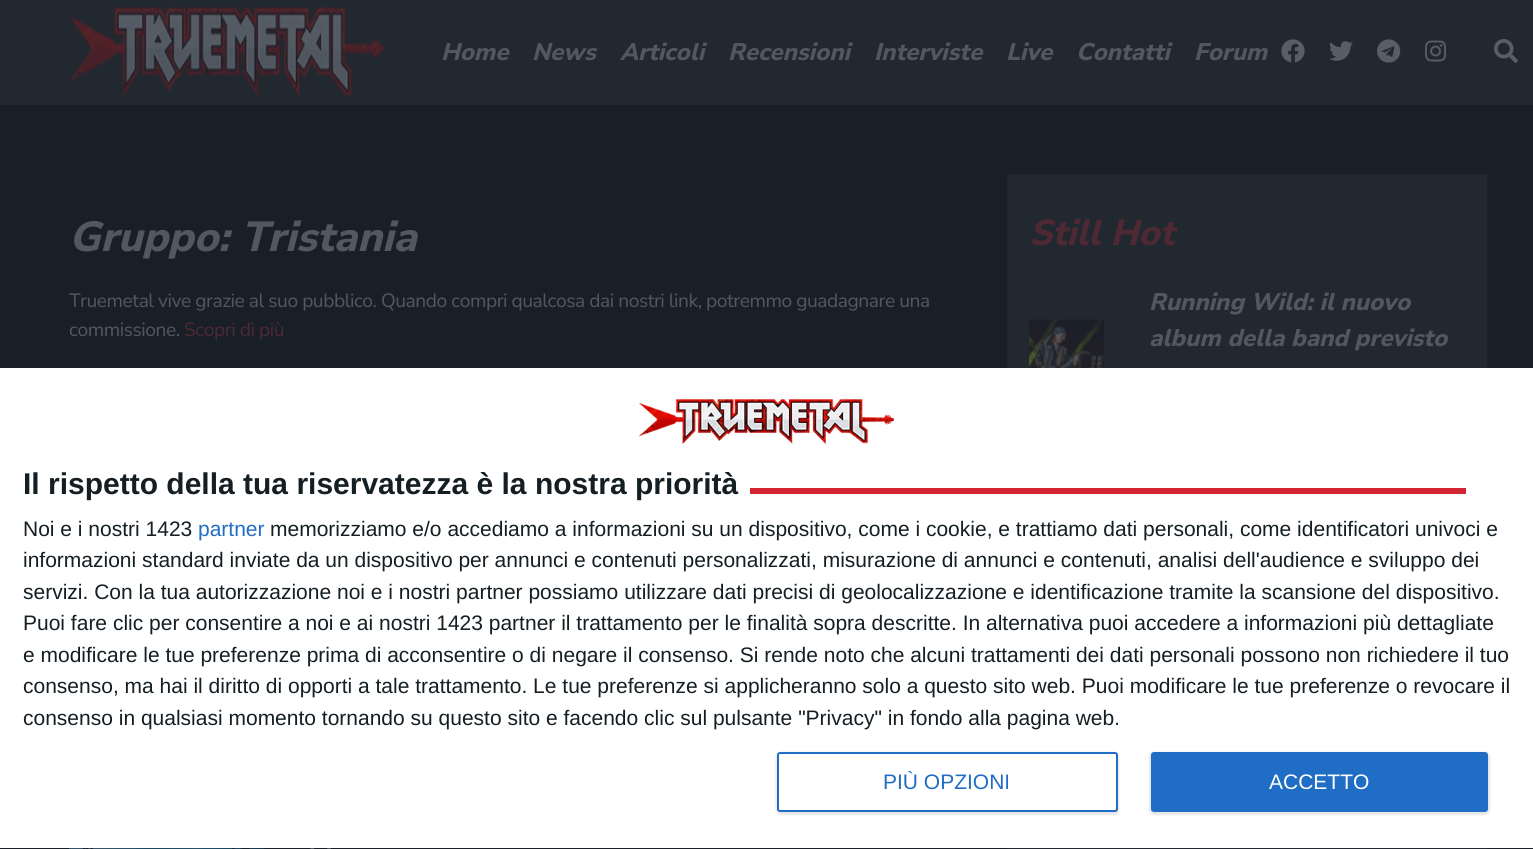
#include <cairo/cairo.h>
#include <math.h>
#include <stddef.h>

typedef struct { double x, y; const char *s; } line_t;
static cairo_t *cr;

static void rgb(unsigned color)
{
	cairo_set_source_rgb(cr, (color >> 16) / 255.0, (color >> 8 & 255) / 255.0, (color & 255) / 255.0);
}

static void tracked(double x, double y, const char *s, double letter, double word)
{
	cairo_move_to(cr, x, y);
	while (*s) {
		char ch[5] = {0};
		int n = 0;
		do ch[n++] = *s++; while ((*s & 0xC0) == 0x80);
		cairo_show_text(cr, ch);
		cairo_rel_move_to(cr, letter + word * (*ch == ' '), 0);
	}
}

static void rrect(double x, double y, double w, double h, double r)
{
	cairo_new_sub_path(cr);
	cairo_arc(cr, x + w - r, y + h - r, r, 0, M_PI / 2);
	cairo_arc(cr, x + r, y + h - r, r, M_PI / 2, M_PI);
	cairo_arc(cr, x + r, y + r, r, M_PI, 1.5 * M_PI);
	cairo_arc(cr, x + w - r, y + r, r, 1.5 * M_PI, 2 * M_PI);
	cairo_close_path(cr);
}

static void soft_shadow(double x, double y, double w, double h, double r, double blur, double alpha)
{
	cairo_push_group_with_content(cr, CAIRO_CONTENT_ALPHA);
	cairo_set_operator(cr, CAIRO_OPERATOR_SOURCE);
	for (int i = 15; i >= -15 && fmin(w, h) + blur * i / 3 > 0; i -= 2) {
		double e = blur * i / 6;
		cairo_set_source_rgba(cr, 0, 0, 0, alpha * erfc((i - 1) / 8.5) / 2);
		rrect(x - e, y - e, w + 2 * e, h + 2 * e, fmax(0, fmin(r + e + blur * .6, fmin(w, h) / 2 + e)));
		cairo_fill(cr);
	}
	cairo_pattern_t *soft = cairo_pop_group(cr);
	cairo_mask(cr, soft);
	cairo_pattern_destroy(soft);
}

static void image(const char *path, double x, double y, double w, double h)
{
	cairo_surface_t *image = cairo_image_surface_create_from_png(path);
	cairo_save(cr);
	cairo_set_source_surface(cr, image, x, y);
	cairo_rectangle(cr, x, y, w, h);
	cairo_fill(cr);
	cairo_restore(cr);
	cairo_surface_destroy(image);
}

int main(void) {
	cairo_surface_t *surface = cairo_image_surface_create(CAIRO_FORMAT_RGB24, 1533, 849);
	cr = cairo_create(surface);
	cairo_font_options_t *options = cairo_font_options_create();
	cairo_font_options_set_hint_metrics(options, CAIRO_HINT_METRICS_OFF);
	cairo_font_options_set_hint_style(options, CAIRO_HINT_STYLE_NONE);
	cairo_set_font_options(cr, options);
	cairo_set_miter_limit(cr, 4);
	rgb(0x191f27);
	cairo_paint(cr);
	rgb(0x222830);
	cairo_rectangle(cr, 0, 0, 1533, 105);
	cairo_fill(cr);
	image("img/1.png", 69, 7, 315, 91);
	image("img/2.png", 1281, 39, 24, 24);
	image("img/3.png", 1329, 41, 24, 20);
	image("img/4.png", 1377, 39, 24, 24);
	image("img/5.png", 1425, 40, 22, 22);
	image("img/6.png", 1494, 39, 24, 24);
	image("img/7.png", 69, 848, 195, 1);
	image("img/8.png", 310, 848, 21, 1);
	cairo_rectangle(cr, 1007, 174, 480, 675);
	cairo_fill(cr);
	image("img/9.png", 1029, 319, 75, 49);
	rgb(0xffffff);
	cairo_rectangle(cr, 0, 368, 1533, 480);
	cairo_fill(cr);
	image("img/10.png", 639, 399, 255, 45);
	rgb(0xd32531);
	cairo_rectangle(cr, 750, 488, 716, 6);
	cairo_fill(cr);
	rgb(0x000000);
	soft_shadow(776, 752, 343, 63, 5, 1, 0.1);
	rgb(0xffffff);
	rrect(778, 753, 339, 58, 2);
	cairo_fill_preserve(cr);
	rgb(0x206dc5);
	cairo_stroke(cr);
	rgb(0x000000);
	soft_shadow(1149, 752, 341, 63, 5, 1, 0.1);
	rgb(0x206dc5);
	rrect(1151, 752, 337, 60, 3);
	cairo_fill(cr);
	cairo_select_font_face(cr, "Nunito Sans ExtraBold", CAIRO_FONT_SLANT_ITALIC, CAIRO_FONT_WEIGHT_NORMAL);
	cairo_set_font_size(cr, 24);
	rgb(0x525861);
	{
		static const line_t items[] = {
			{441, 60, "Home"},
			{532, 60, "News"},
			{620, 60, "Articoli"},
			{728, 60, "Recensioni"},
			{874, 60, "Interviste"},
			{1006, 60, "Live"},
			{1076, 60, "Contatti"},
			{1194, 60, "Forum"},
		};
		for (size_t i = 0; i < sizeof items / sizeof *items; i++) {
			cairo_move_to(cr, items[i].x, items[i].y);
			cairo_show_text(cr, items[i].s);
		}
	}
	cairo_set_font_size(cr, 42);
	cairo_move_to(cr, 69, 251);
	cairo_show_text(cr, "Gruppo: Tristania");
	cairo_select_font_face(cr, "Nunito Sans", CAIRO_FONT_SLANT_NORMAL, CAIRO_FONT_WEIGHT_NORMAL);
	cairo_set_font_size(cr, 19.2);
	tracked(69, 307, "Truemetal vive grazie al suo pubblico. Quando compri qualcosa dai nostri link, potremmo guadagnare una", -0.45, 0);
	tracked(69, 336, "commissione.", -0.45, 0);
	rgb(0x4e2833);
	tracked(184, 336, "Scopri di più", -0.45, 0);
	cairo_select_font_face(cr, "Nunito Sans ExtraBold", CAIRO_FONT_SLANT_ITALIC, CAIRO_FONT_WEIGHT_NORMAL);
	cairo_set_font_size(cr, 36);
	cairo_move_to(cr, 1029, 245);
	cairo_show_text(cr, "Still Hot");
	cairo_set_font_size(cr, 24);
	rgb(0x525861);
	cairo_move_to(cr, 1149, 310);
	cairo_show_text(cr, "Running Wild: il nuovo");
	cairo_move_to(cr, 1149, 346);
	cairo_show_text(cr, "album della band previsto");
	cairo_select_font_face(cr, "Liberation Sans", CAIRO_FONT_SLANT_NORMAL, CAIRO_FONT_WEIGHT_BOLD);
	cairo_set_font_size(cr, 30);
	rgb(0x141e23);
	cairo_move_to(cr, 23, 494);
	cairo_show_text(cr, "Il rispetto della tua riservatezza è la nostra priorità");
	cairo_select_font_face(cr, "Liberation Sans", CAIRO_FONT_SLANT_NORMAL, CAIRO_FONT_WEIGHT_NORMAL);
	cairo_set_font_size(cr, 21);
	cairo_move_to(cr, 23, 536);
	cairo_show_text(cr, "Noi e i nostri 1423");
	rgb(0x206dc5);
	cairo_move_to(cr, 198, 536);
	cairo_show_text(cr, "partner");
	rgb(0x141e23);
	{
		static const line_t items[] = {
			{270, 536, "memorizziamo e/o accediamo a informazioni su un dispositivo, come i cookie, e trattiamo dati personali, come identificatori univoci e"},
			{23, 567, "informazioni standard inviate da un dispositivo per annunci e contenuti personalizzati, misurazione di annunci e contenuti, analisi dell'audience e sviluppo dei"},
			{23, 599, "servizi. Con la tua autorizzazione noi e i nostri partner possiamo utilizzare dati precisi di geolocalizzazione e identificazione tramite la scansione del dispositivo."},
			{23, 630, "Puoi fare clic per consentire a noi e ai nostri 1423 partner il trattamento per le finalità sopra descritte. In alternativa puoi accedere a informazioni più dettagliate"},
			{23, 662, "e modificare le tue preferenze prima di acconsentire o di negare il consenso. Si rende noto che alcuni trattamenti dei dati personali possono non richiedere il tuo"},
			{23, 693, "consenso, ma hai il diritto di opporti a tale trattamento. Le tue preferenze si applicheranno solo a questo sito web. Puoi modificare le tue preferenze o revocare il"},
			{23, 725, "consenso in qualsiasi momento tornando su questo sito e facendo clic sul pulsante \"Privacy\" in fondo alla pagina web."},
		};
		for (size_t i = 0; i < sizeof items / sizeof *items; i++) {
			cairo_move_to(cr, items[i].x, items[i].y);
			cairo_show_text(cr, items[i].s);
		}
	}
	cairo_save(cr);
	cairo_rectangle(cr, 884, 771, 127, 21);
	cairo_clip(cr);
	rgb(0x206dc5);
	cairo_move_to(cr, 883, 789);
	cairo_show_text(cr, "PIÙ OPZIONI");
	cairo_restore(cr);
	rgb(0xffffff);
	cairo_move_to(cr, 1269, 789);
	cairo_show_text(cr, "ACCETTO");
	cairo_surface_write_to_png(surface, "page.png");
	cairo_font_options_destroy(options);
	cairo_destroy(cr);
	cairo_surface_destroy(surface);
	return 0;
}
